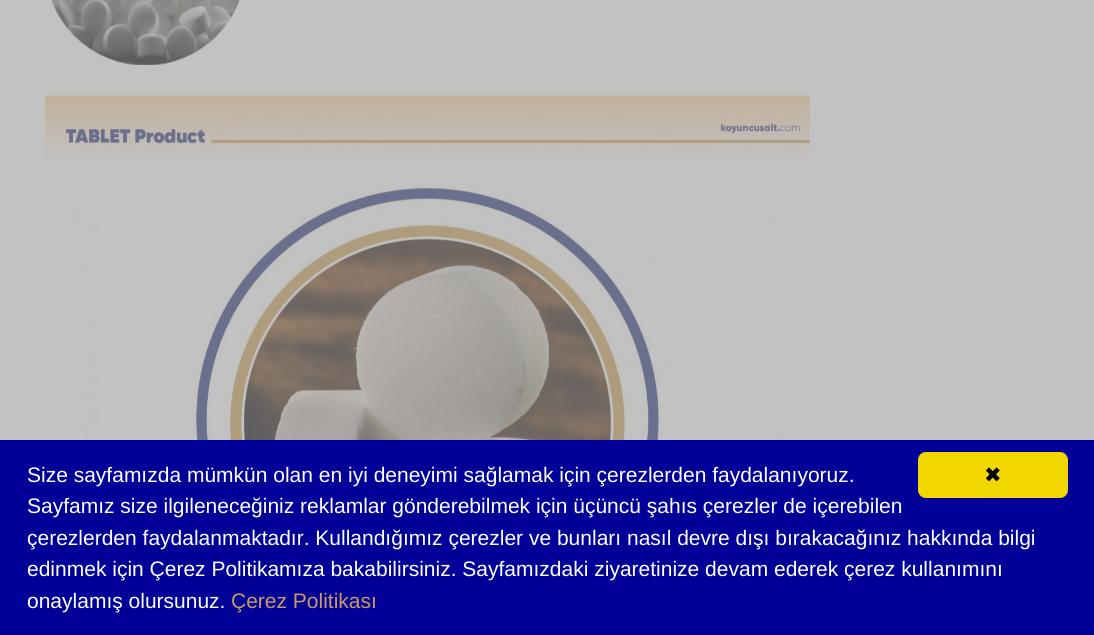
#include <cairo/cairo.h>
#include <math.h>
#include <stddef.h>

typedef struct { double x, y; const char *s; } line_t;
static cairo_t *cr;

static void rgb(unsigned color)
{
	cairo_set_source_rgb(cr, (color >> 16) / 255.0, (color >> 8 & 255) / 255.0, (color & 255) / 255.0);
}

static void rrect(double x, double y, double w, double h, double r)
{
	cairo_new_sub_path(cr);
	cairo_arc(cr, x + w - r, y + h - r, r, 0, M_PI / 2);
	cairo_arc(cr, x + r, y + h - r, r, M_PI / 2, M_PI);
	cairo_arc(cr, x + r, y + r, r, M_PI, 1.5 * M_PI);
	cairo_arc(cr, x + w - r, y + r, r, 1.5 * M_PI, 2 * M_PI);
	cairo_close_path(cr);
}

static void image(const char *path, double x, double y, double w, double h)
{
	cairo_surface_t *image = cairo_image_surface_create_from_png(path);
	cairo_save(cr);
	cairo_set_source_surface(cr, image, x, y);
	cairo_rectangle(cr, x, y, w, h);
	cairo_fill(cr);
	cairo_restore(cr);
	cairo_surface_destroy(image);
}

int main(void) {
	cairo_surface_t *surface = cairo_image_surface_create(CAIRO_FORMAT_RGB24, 1094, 635);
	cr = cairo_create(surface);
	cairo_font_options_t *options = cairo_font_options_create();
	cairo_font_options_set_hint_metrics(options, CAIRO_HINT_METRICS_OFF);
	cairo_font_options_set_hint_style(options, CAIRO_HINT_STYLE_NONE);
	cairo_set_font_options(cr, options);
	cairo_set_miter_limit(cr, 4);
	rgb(0xc2c2c2);
	cairo_paint(cr);
	image("img/1.png", 51, 0, 189, 65);
	image("img/2.png", 45, 95, 765, 345);
	rgb(0x000099);
	cairo_rectangle(cr, 0, 440, 1094, 195);
	cairo_fill(cr);
	rgb(0xf1d600);
	rrect(918, 452, 150, 46, 8);
	cairo_fill(cr);
	cairo_select_font_face(cr, "Liberation Sans", CAIRO_FONT_SLANT_NORMAL, CAIRO_FONT_WEIGHT_NORMAL);
	cairo_set_font_size(cr, 21);
	rgb(0xffffff);
	{
		static const line_t items[] = {
			{27, 482, "Size sayfamızda mümkün olan en iyi deneyimi sağlamak için çerezlerden faydalanıyoruz."},
			{27, 513, "Sayfamız size ilgileneceğiniz reklamlar gönderebilmek için üçüncü şahıs çerezler de içerebilen"},
			{27, 545, "çerezlerden faydalanmaktadır. Kullandığımız çerezler ve bunları nasıl devre dışı bırakacağınız hakkında bilgi"},
			{27, 576, "edinmek için Çerez Politikamıza bakabilirsiniz. Sayfamızdaki ziyaretinize devam ederek çerez kullanımını"},
			{27, 608, "onaylamış olursunuz."},
		};
		for (size_t i = 0; i < sizeof items / sizeof *items; i++) {
			cairo_move_to(cr, items[i].x, items[i].y);
			cairo_show_text(cr, items[i].s);
		}
	}
	rgb(0xcc9966);
	cairo_move_to(cr, 231, 608);
	cairo_show_text(cr, "Çerez Politikası");
	cairo_select_font_face(cr, "DejaVu Sans", CAIRO_FONT_SLANT_NORMAL, CAIRO_FONT_WEIGHT_NORMAL);
	rgb(0x000000);
	cairo_move_to(cr, 984, 482);
	cairo_show_text(cr, "✖");
	cairo_surface_write_to_png(surface, "page.png");
	cairo_font_options_destroy(options);
	cairo_destroy(cr);
	cairo_surface_destroy(surface);
	return 0;
}
